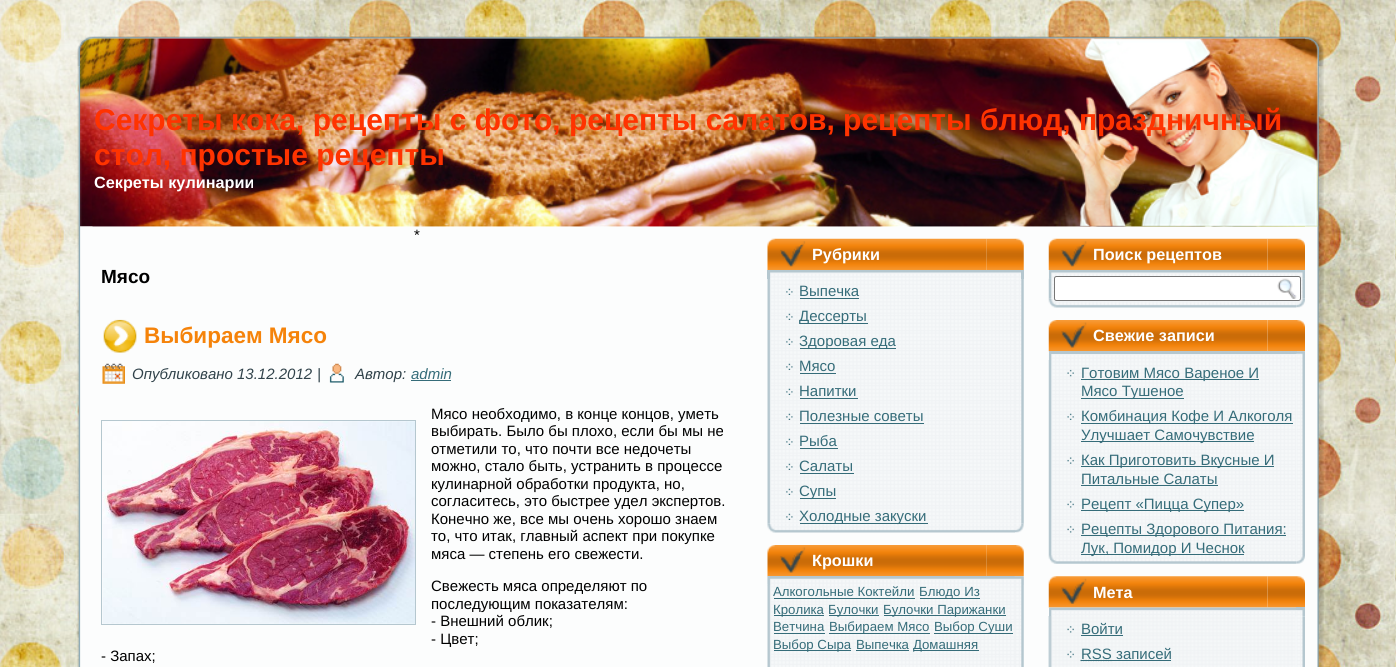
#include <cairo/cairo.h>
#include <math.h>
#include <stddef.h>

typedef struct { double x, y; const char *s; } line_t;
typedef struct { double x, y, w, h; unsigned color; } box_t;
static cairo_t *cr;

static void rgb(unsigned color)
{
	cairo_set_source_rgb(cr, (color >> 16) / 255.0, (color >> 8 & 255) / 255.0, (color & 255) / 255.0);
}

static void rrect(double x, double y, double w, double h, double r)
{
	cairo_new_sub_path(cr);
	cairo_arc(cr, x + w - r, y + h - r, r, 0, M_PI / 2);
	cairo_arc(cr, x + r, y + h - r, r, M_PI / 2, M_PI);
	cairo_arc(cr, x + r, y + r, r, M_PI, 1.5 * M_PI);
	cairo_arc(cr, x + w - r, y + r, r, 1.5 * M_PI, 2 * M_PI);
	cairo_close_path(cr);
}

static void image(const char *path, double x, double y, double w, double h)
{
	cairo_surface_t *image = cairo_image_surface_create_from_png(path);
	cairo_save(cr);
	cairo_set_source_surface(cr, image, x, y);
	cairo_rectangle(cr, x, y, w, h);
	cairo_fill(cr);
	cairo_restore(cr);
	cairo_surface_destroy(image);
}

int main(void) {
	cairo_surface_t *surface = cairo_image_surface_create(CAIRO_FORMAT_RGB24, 1396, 667);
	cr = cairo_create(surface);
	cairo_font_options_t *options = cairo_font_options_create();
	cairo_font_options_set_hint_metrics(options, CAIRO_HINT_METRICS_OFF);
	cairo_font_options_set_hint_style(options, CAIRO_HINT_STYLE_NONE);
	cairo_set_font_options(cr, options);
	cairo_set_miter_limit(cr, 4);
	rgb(0xffffff);
	cairo_paint(cr);
	image("img/1.png", 0, 0, 1396, 667);
	image("img/2.png", 0, 0, 601, 491);
	image("img/3.png", 77, 36, 1213, 31);
	image("img/4.png", 77, 36, 1213, 31);
	image("img/8.png", 1290, 66, 34, 601);
	image("img/5.png", 1290, 36, 34, 31);
	image("img/6.png", 1290, 36, 34, 31);
	image("img/7.png", 77, 66, 1213, 601);
	image("img/9.png", 80, 38, 1238, 189);
	image("img/10.png", 92, 38, 1213, 189);
	image("img/11.png", 1057, 38, 261, 189);
	image("img/12.png", 103, 319, 34, 34);
	image("img/13.png", 102, 363, 23, 21);
	image("img/14.png", 329, 363, 15, 20);
	rgb(0x356c79);
	cairo_rectangle(cr, 411, 380, 40, 1);
	cairo_fill(cr);
	cairo_rectangle(cr, 101.5, 420.5, 314, 204);
	rgb(0xb5c7cf);
	cairo_set_line_width(cr, 1);
	cairo_stroke(cr);
	image("img/15.png", 102, 421, 313, 203);
	image("img/16.png", 767, 238, 220, 32);
	image("img/17.png", 986, 238, 38, 32);
	image("img/18.png", 767, 270, 248, 263);
	cairo_rectangle(cr, 767, 270, 3, 9);
	cairo_fill(cr);
	image("img/21.png", 1015, 278, 9, 246);
	image("img/19.png", 1015, 270, 9, 263);
	cairo_rectangle(cr, 1021, 270, 3, 9);
	cairo_fill(cr);
	image("img/20.png", 767, 279, 248, 245);
	image("img/22.png", 786, 288, 7, 7);
	rgb(0x356c79);
	cairo_rectangle(cr, 800, 298, 59, 1);
	cairo_fill(cr);
	image("img/23.png", 786, 313, 7, 7);
	cairo_rectangle(cr, 800, 323, 68, 1);
	cairo_fill(cr);
	image("img/24.png", 786, 338, 7, 7);
	cairo_rectangle(cr, 800, 348, 96, 1);
	cairo_fill(cr);
	image("img/25.png", 786, 363, 7, 7);
	cairo_rectangle(cr, 800, 373, 36, 1);
	cairo_fill(cr);
	image("img/26.png", 786, 388, 7, 7);
	cairo_rectangle(cr, 800, 398, 58, 1);
	cairo_fill(cr);
	image("img/27.png", 786, 413, 7, 7);
	cairo_rectangle(cr, 800, 423, 124, 1);
	cairo_fill(cr);
	image("img/22.png", 786, 438, 7, 7);
	cairo_rectangle(cr, 800, 448, 38, 1);
	cairo_fill(cr);
	image("img/22.png", 786, 463, 7, 7);
	cairo_rectangle(cr, 800, 473, 54, 1);
	cairo_fill(cr);
	image("img/28.png", 786, 488, 7, 7);
	cairo_rectangle(cr, 800, 498, 36, 1);
	cairo_fill(cr);
	image("img/29.png", 786, 513, 7, 7);
	cairo_rectangle(cr, 800, 523, 128, 1);
	cairo_fill(cr);
	image("img/30.png", 767, 545, 220, 32);
	image("img/31.png", 986, 545, 38, 32);
	image("img/32.png", 767, 576, 248, 10);
	image("img/33.png", 767, 576, 248, 9);
	image("img/34.png", 1015, 576, 9, 9);
	image("img/35.png", 1015, 576, 9, 9);
	image("img/36.png", 767, 585, 248, 82);
	image("img/37.png", 1015, 585, 9, 82);
	{
		static const box_t items[] = {
			{774, 598, 141, 1, 0x356c79},
			{920, 598, 60, 1, 0x356c79},
			{774, 615, 50, 1, 0x356c79},
			{829, 615, 50, 1, 0x356c79},
			{884, 615, 122, 1, 0x356c79},
			{774, 633, 51, 1, 0x356c79},
			{829, 633, 101, 1, 0x356c79},
			{934, 633, 79, 1, 0x356c79},
			{774, 650, 77, 1, 0x356c79},
			{856, 650, 53, 1, 0x356c79},
			{914, 650, 65, 1, 0x356c79},
		};
		for (size_t i = 0; i < sizeof items / sizeof *items; i++) {
			rgb(items[i].color);
			cairo_rectangle(cr, items[i].x, items[i].y, items[i].w, items[i].h);
			cairo_fill(cr);
		}
	}
	image("img/38.png", 1048, 238, 220, 32);
	image("img/39.png", 1267, 238, 38, 32);
	image("img/40.png", 1048, 270, 249, 38);
	image("img/41.png", 1049, 270, 248, 9);
	image("img/46.png", 1300, 278, 5, 21);
	image("img/42.png", 1296, 270, 9, 38);
	image("img/43.png", 1296, 270, 9, 9);
	image("img/44.png", 1048, 278, 7, 21);
	rgb(0xffffff);
	rrect(1054.5, 276.5, 246, 24, 2);
	cairo_fill_preserve(cr);
	rgb(0x767676);
	cairo_stroke(cr);
	image("img/45.png", 1277, 278, 20, 21);
	image("img/47.png", 1048, 320, 220, 32);
	image("img/48.png", 1267, 320, 38, 31);
	image("img/49.png", 1048, 351, 249, 213);
	rgb(0xb5c7cf);
	cairo_rectangle(cr, 1049, 351, 248, 3);
	cairo_fill(cr);
	image("img/52.png", 1296, 360, 9, 195);
	image("img/50.png", 1296, 351, 9, 213);
	rgb(0xc2ccce);
	cairo_rectangle(cr, 1297, 351, 8, 1);
	cairo_fill(cr);
	image("img/51.png", 1048, 360, 248, 195);
	image("img/53.png", 1067, 369, 7, 8);
	rgb(0x356c79);
	cairo_rectangle(cr, 1081, 379, 178, 1);
	cairo_fill(cr);
	cairo_rectangle(cr, 1081, 398, 103, 1);
	cairo_fill(cr);
	image("img/54.png", 1067, 413, 7, 7);
	cairo_rectangle(cr, 1081, 423, 212, 1);
	cairo_fill(cr);
	cairo_rectangle(cr, 1081, 441, 173, 1);
	cairo_fill(cr);
	image("img/55.png", 1067, 457, 7, 7);
	cairo_rectangle(cr, 1081, 466, 193, 1);
	cairo_fill(cr);
	cairo_rectangle(cr, 1081, 485, 137, 1);
	cairo_fill(cr);
	image("img/56.png", 1067, 501, 7, 7);
	cairo_rectangle(cr, 1081, 510, 163, 1);
	cairo_fill(cr);
	image("img/57.png", 1067, 526, 7, 7);
	cairo_rectangle(cr, 1081, 535, 205, 1);
	cairo_fill(cr);
	cairo_rectangle(cr, 1081, 554, 163, 1);
	cairo_fill(cr);
	image("img/58.png", 1048, 576, 220, 32);
	image("img/59.png", 1267, 576, 38, 32);
	image("img/60.png", 1049, 607, 248, 10);
	image("img/61.png", 1049, 607, 248, 10);
	image("img/63.png", 1048, 616, 249, 51);
	image("img/64.png", 1297, 616, 8, 51);
	image("img/62.png", 1296, 610, 9, 7);
	rgb(0xb5c7cf);
	cairo_rectangle(cr, 1296, 607, 9, 3);
	cairo_fill(cr);
	image("img/65.png", 1067, 626, 7, 7);
	rgb(0x356c79);
	cairo_rectangle(cr, 1081, 635, 42, 1);
	cairo_fill(cr);
	image("img/66.png", 1067, 651, 7, 7);
	cairo_new_path(cr);
	cairo_move_to(cr, 1080.5, 660.5);
	cairo_line_to(cr, 1111.5, 660.5);
	cairo_set_line_width(cr, 1.2);
	cairo_set_dash(cr, (double[]){1.25, 1.25}, 2, 0);
	cairo_stroke(cr);
	cairo_rectangle(cr, 1081, 660, 90, 1);
	cairo_fill(cr);
	cairo_select_font_face(cr, "Liberation Sans", CAIRO_FONT_SLANT_NORMAL, CAIRO_FONT_WEIGHT_BOLD);
	cairo_set_font_size(cr, 30);
	rgb(0xff3300);
	cairo_move_to(cr, 94, 130);
	cairo_show_text(cr, "Секреты кока, рецепты с фото, рецепты салатов, рецепты блюд, праздничный");
	cairo_move_to(cr, 94, 165);
	cairo_show_text(cr, "стол, простые рецепты");
	cairo_set_font_size(cr, 16.25);
	rgb(0xffffff);
	cairo_move_to(cr, 94, 188);
	cairo_show_text(cr, "Секреты кулинарии");
	cairo_select_font_face(cr, "Liberation Sans", CAIRO_FONT_SLANT_NORMAL, CAIRO_FONT_WEIGHT_NORMAL);
	cairo_set_font_size(cr, 15);
	rgb(0x000000);
	cairo_move_to(cr, 414, 240);
	cairo_show_text(cr, "*");
	cairo_select_font_face(cr, "Liberation Sans", CAIRO_FONT_SLANT_NORMAL, CAIRO_FONT_WEIGHT_BOLD);
	cairo_set_font_size(cr, 19);
	cairo_move_to(cr, 101, 283);
	cairo_show_text(cr, "Мясо");
	cairo_set_font_size(cr, 22.5);
	rgb(0xf5830a);
	cairo_move_to(cr, 144, 343);
	cairo_show_text(cr, "Выбираем Мясо");
	cairo_select_font_face(cr, "Liberation Sans", CAIRO_FONT_SLANT_ITALIC, CAIRO_FONT_WEIGHT_NORMAL);
	cairo_set_font_size(cr, 15);
	rgb(0x30424a);
	{
		static const line_t items[] = {
			{132, 379, "Опубликовано 13.12.2012"},
			{317, 379, "|"},
			{355, 379, "Автор:"},
		};
		for (size_t i = 0; i < sizeof items / sizeof *items; i++) {
			cairo_move_to(cr, items[i].x, items[i].y);
			cairo_show_text(cr, items[i].s);
		}
	}
	rgb(0x356c79);
	cairo_move_to(cr, 411, 379);
	cairo_show_text(cr, "admin");
	cairo_select_font_face(cr, "Liberation Sans", CAIRO_FONT_SLANT_NORMAL, CAIRO_FONT_WEIGHT_NORMAL);
	rgb(0x000000);
	{
		static const line_t items[] = {
			{431, 419, "Мясо необходимо, в конце концов, уметь"},
			{431, 436, "выбирать. Было бы плохо, если бы мы не"},
			{431, 454, "отметили то, что почти все недочеты"},
			{431, 471, "можно, стало быть, устранить в процессе"},
			{431, 489, "кулинарной обработки продукта, но,"},
			{431, 506, "согласитесь, это быстрее удел экспертов."},
			{431, 524, "Конечно же, все мы очень хорошо знаем"},
			{431, 541, "то, что итак, главный аспект при покупке"},
			{431, 559, "мяса — степень его свежести."},
			{431, 591, "Свежесть мяса определяют по"},
			{431, 609, "последующим показателям:"},
			{431, 626, "- Внешний облик;"},
			{431, 644, "- Цвет;"},
			{101, 661, "- Запах;"},
		};
		for (size_t i = 0; i < sizeof items / sizeof *items; i++) {
			cairo_move_to(cr, items[i].x, items[i].y);
			cairo_show_text(cr, items[i].s);
		}
	}
	cairo_select_font_face(cr, "Liberation Sans", CAIRO_FONT_SLANT_NORMAL, CAIRO_FONT_WEIGHT_BOLD);
	cairo_set_font_size(cr, 16.25);
	rgb(0xffffff);
	cairo_move_to(cr, 812, 260);
	cairo_show_text(cr, "Рубрики");
	cairo_select_font_face(cr, "Liberation Sans", CAIRO_FONT_SLANT_NORMAL, CAIRO_FONT_WEIGHT_NORMAL);
	cairo_set_font_size(cr, 15);
	rgb(0x356c79);
	{
		static const line_t items[] = {
			{799, 296, "Выпечка"},
			{799, 321, "Дессерты"},
			{799, 346, "Здоровая еда"},
			{799, 371, "Мясо"},
			{799, 396, "Напитки"},
			{799, 421, "Полезные советы"},
			{799, 446, "Рыба"},
			{799, 471, "Салаты"},
			{799, 496, "Супы"},
			{799, 521, "Холодные закуски"},
		};
		for (size_t i = 0; i < sizeof items / sizeof *items; i++) {
			cairo_move_to(cr, items[i].x, items[i].y);
			cairo_show_text(cr, items[i].s);
		}
	}
	cairo_select_font_face(cr, "Liberation Sans", CAIRO_FONT_SLANT_NORMAL, CAIRO_FONT_WEIGHT_BOLD);
	cairo_set_font_size(cr, 16.25);
	rgb(0xffffff);
	cairo_move_to(cr, 812, 566);
	cairo_show_text(cr, "Крошки");
	cairo_select_font_face(cr, "Liberation Sans", CAIRO_FONT_SLANT_NORMAL, CAIRO_FONT_WEIGHT_NORMAL);
	cairo_set_font_size(cr, 13.25);
	rgb(0x356c79);
	{
		static const line_t items[] = {
			{773, 596, "Алкогольные Коктейли"},
			{919, 596, "Блюдо Из"},
			{773, 614, "Кролика"},
			{828, 614, "Булочки"},
			{883, 614, "Булочки Парижанки"},
			{773, 631, "Ветчина"},
			{829, 631, "Выбираем Мясо"},
			{934, 631, "Выбор Суши"},
			{773, 649, "Выбор Сыра"},
			{856, 649, "Выпечка"},
			{913, 649, "Домашняя"},
		};
		for (size_t i = 0; i < sizeof items / sizeof *items; i++) {
			cairo_move_to(cr, items[i].x, items[i].y);
			cairo_show_text(cr, items[i].s);
		}
	}
	cairo_select_font_face(cr, "Liberation Sans", CAIRO_FONT_SLANT_NORMAL, CAIRO_FONT_WEIGHT_BOLD);
	cairo_set_font_size(cr, 16.25);
	rgb(0xffffff);
	cairo_move_to(cr, 1093, 260);
	cairo_show_text(cr, "Поиск рецептов");
	cairo_move_to(cr, 1093, 341);
	cairo_show_text(cr, "Свежие записи");
	cairo_select_font_face(cr, "Liberation Sans", CAIRO_FONT_SLANT_NORMAL, CAIRO_FONT_WEIGHT_NORMAL);
	cairo_set_font_size(cr, 15);
	rgb(0x356c79);
	{
		static const line_t items[] = {
			{1081, 378, "Готовим Мясо Вареное И"},
			{1081, 396, "Мясо Тушеное"},
			{1081, 421, "Комбинация Кофе И Алкоголя"},
			{1081, 440, "Улучшает Самочувствие"},
			{1081, 465, "Как Приготовить Вкусные И"},
			{1081, 484, "Питальные Салаты"},
			{1081, 509, "Рецепт «Пицца Супер»"},
			{1081, 534, "Рецепты Здорового Питания:"},
			{1081, 553, "Лук, Помидор И Чеснок"},
		};
		for (size_t i = 0; i < sizeof items / sizeof *items; i++) {
			cairo_move_to(cr, items[i].x, items[i].y);
			cairo_show_text(cr, items[i].s);
		}
	}
	cairo_select_font_face(cr, "Liberation Sans", CAIRO_FONT_SLANT_NORMAL, CAIRO_FONT_WEIGHT_BOLD);
	cairo_set_font_size(cr, 16.25);
	rgb(0xffffff);
	cairo_move_to(cr, 1093, 598);
	cairo_show_text(cr, "Мета");
	cairo_select_font_face(cr, "Liberation Sans", CAIRO_FONT_SLANT_NORMAL, CAIRO_FONT_WEIGHT_NORMAL);
	cairo_set_font_size(cr, 15);
	rgb(0x356c79);
	cairo_move_to(cr, 1081, 634);
	cairo_show_text(cr, "Войти");
	cairo_move_to(cr, 1081, 659);
	cairo_show_text(cr, "RSS записей");
	cairo_surface_write_to_png(surface, "page.png");
	cairo_font_options_destroy(options);
	cairo_destroy(cr);
	cairo_surface_destroy(surface);
	return 0;
}
